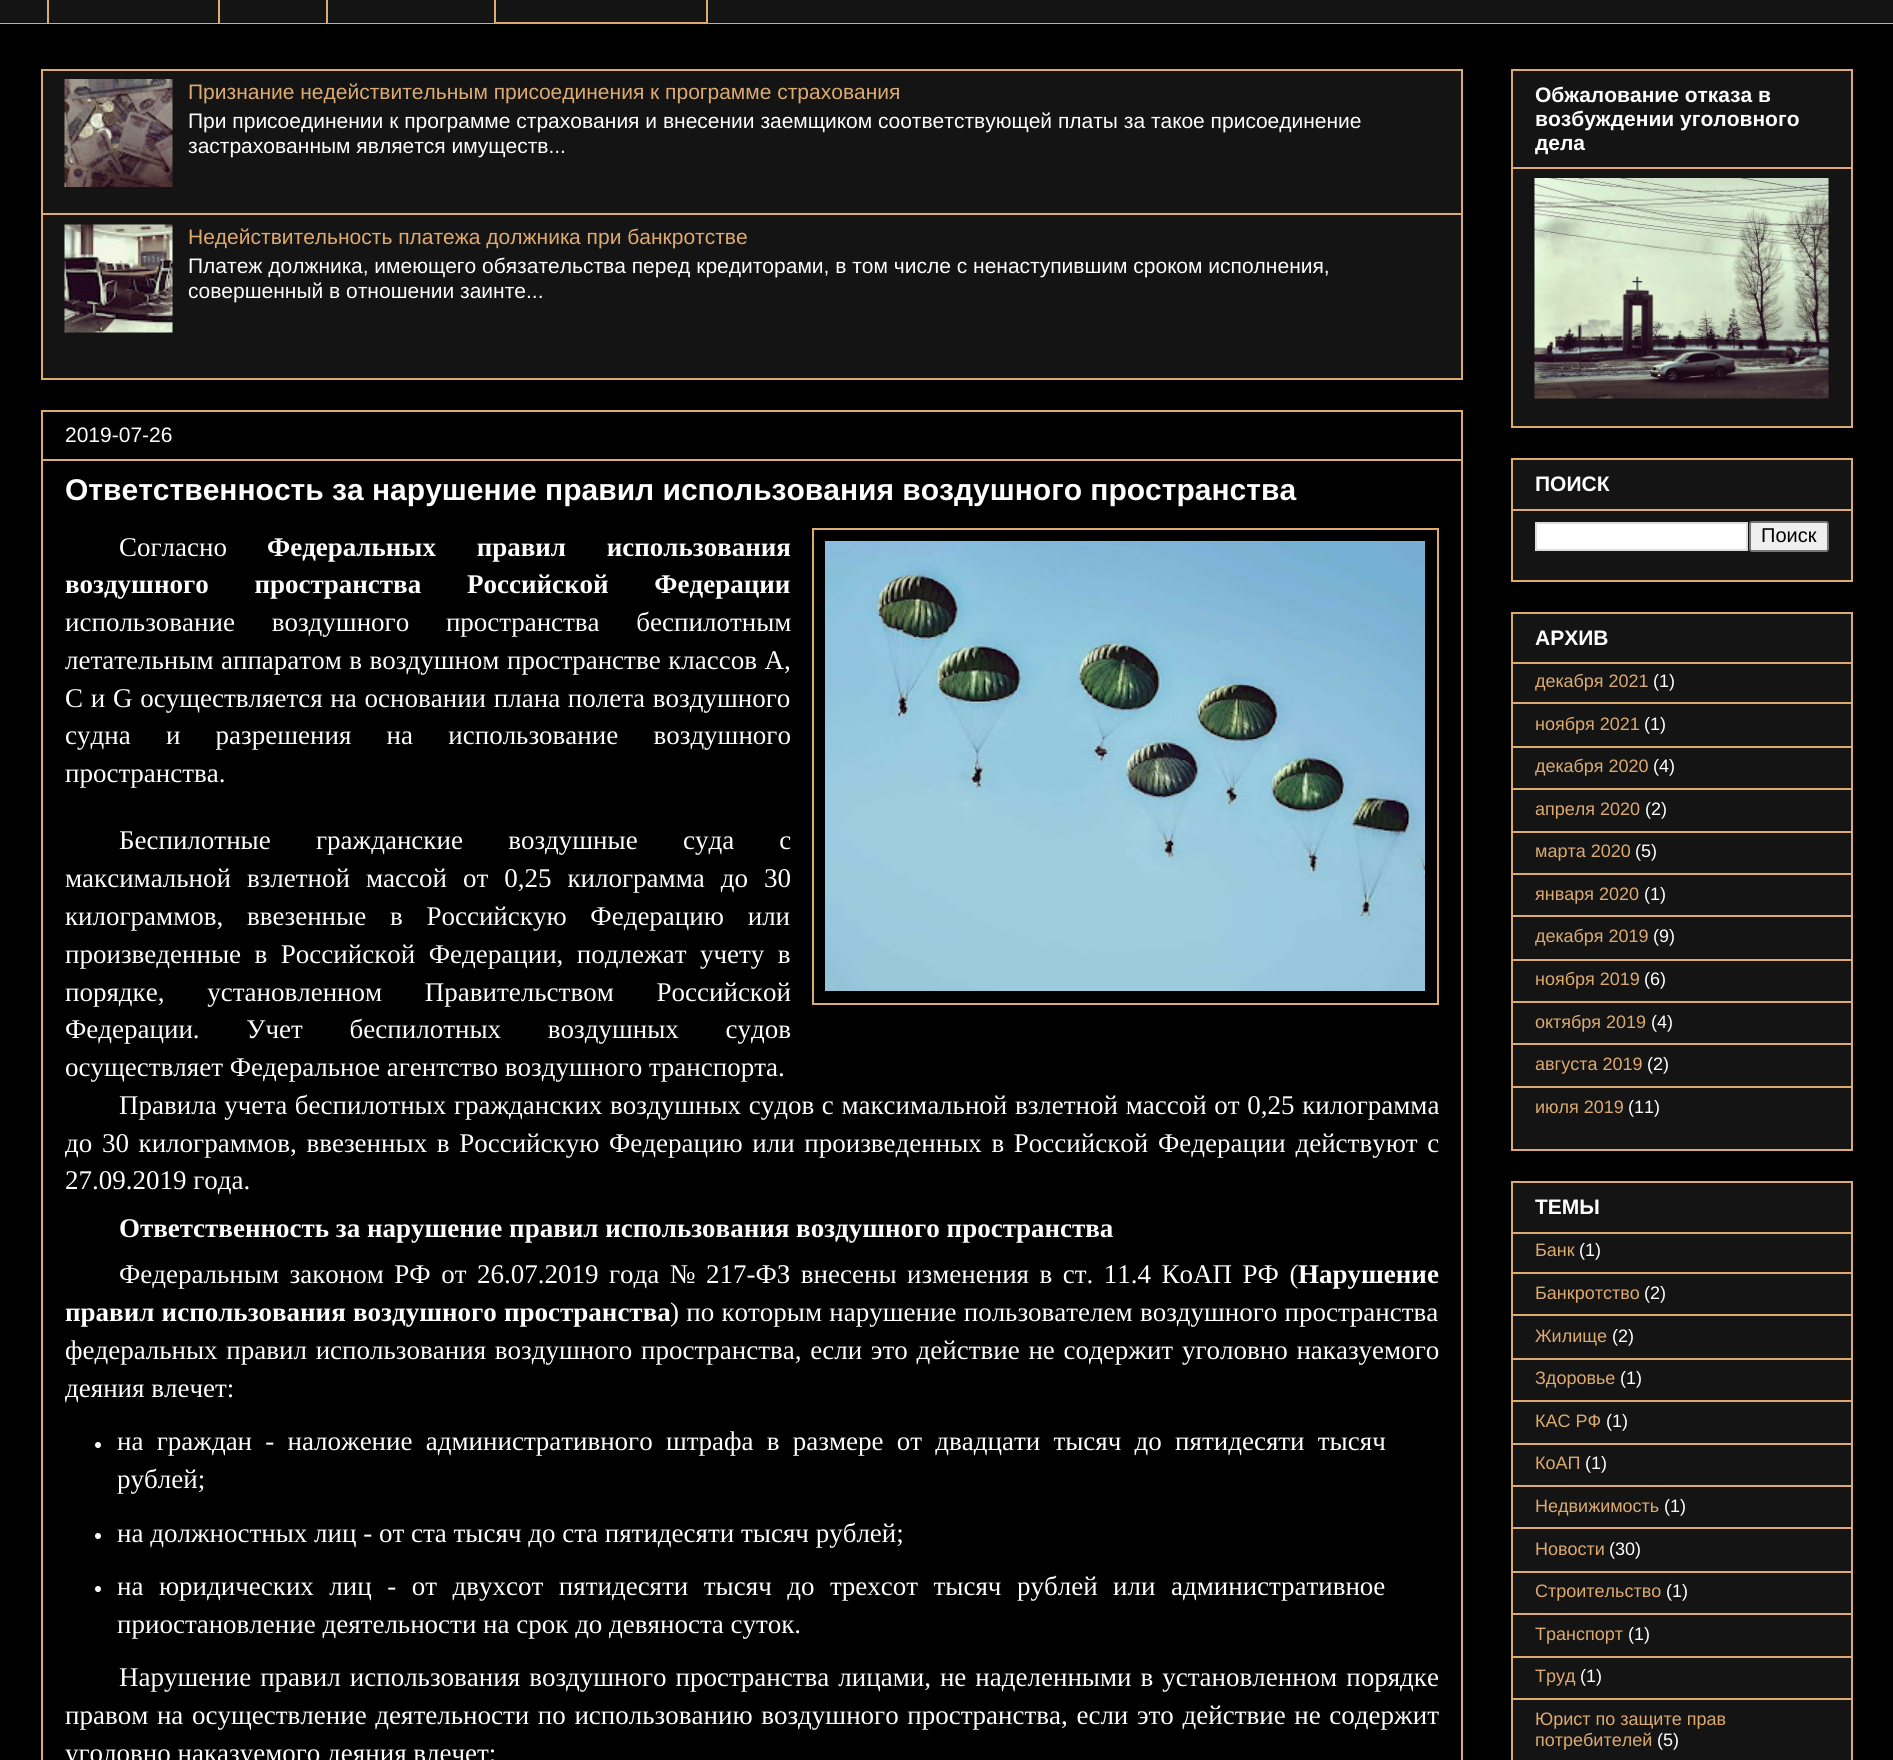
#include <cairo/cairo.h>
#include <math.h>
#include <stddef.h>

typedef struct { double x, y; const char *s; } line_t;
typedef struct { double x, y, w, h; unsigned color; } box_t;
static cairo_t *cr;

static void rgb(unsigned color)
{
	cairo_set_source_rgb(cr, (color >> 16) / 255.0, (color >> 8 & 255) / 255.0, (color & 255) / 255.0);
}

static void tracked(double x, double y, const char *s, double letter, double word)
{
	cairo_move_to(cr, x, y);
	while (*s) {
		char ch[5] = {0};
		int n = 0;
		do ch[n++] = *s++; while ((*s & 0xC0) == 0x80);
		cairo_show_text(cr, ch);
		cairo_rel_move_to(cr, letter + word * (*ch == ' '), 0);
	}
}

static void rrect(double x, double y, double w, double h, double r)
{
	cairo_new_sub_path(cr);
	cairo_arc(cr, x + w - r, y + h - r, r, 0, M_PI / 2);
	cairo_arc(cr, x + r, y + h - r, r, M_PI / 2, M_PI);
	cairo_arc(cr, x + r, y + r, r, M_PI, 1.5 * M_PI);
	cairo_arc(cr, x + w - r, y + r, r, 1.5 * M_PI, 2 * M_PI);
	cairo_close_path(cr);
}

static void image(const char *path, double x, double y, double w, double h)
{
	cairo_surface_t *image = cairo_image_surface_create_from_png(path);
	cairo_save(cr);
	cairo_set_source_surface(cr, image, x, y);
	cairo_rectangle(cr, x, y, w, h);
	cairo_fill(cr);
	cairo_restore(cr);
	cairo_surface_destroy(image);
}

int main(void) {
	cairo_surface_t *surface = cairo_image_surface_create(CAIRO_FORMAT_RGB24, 1893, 1760);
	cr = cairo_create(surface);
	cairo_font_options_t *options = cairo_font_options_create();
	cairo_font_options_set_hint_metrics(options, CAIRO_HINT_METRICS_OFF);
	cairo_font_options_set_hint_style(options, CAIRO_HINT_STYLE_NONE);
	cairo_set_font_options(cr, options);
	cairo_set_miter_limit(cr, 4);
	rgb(0x000000);
	cairo_paint(cr);
	{
		static const box_t items[] = {
			{0, 0, 1893, 23, 0x141414},
			{47, 0, 2, 24, 0xddaa6f},
			{218, 0, 2, 24, 0xddaa6f},
			{326, 0, 2, 24, 0xddaa6f},
		};
		for (size_t i = 0; i < sizeof items / sizeof *items; i++) {
			rgb(items[i].color);
			cairo_rectangle(cr, items[i].x, items[i].y, items[i].w, items[i].h);
			cairo_fill(cr);
		}
	}
	cairo_rectangle(cr, 495, -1, 212, 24);
	cairo_stroke(cr);
	cairo_rectangle(cr, 0, 23, 1893, 1);
	cairo_fill(cr);
	rgb(0x141414);
	cairo_rectangle(cr, 42, 70, 1420, 309);
	cairo_fill_preserve(cr);
	rgb(0xddaa6f);
	cairo_stroke(cr);
	image("img/1.png", 64, 79, 109, 108);
	cairo_rectangle(cr, 42, 213, 1419, 2);
	cairo_fill(cr);
	image("img/2.png", 64, 224, 109, 109);
	cairo_rectangle(cr, 42, 411, 1420, 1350);
	cairo_stroke(cr);
	cairo_rectangle(cr, 42, 459, 1419, 2);
	cairo_fill(cr);
	cairo_rectangle(cr, 813, 529, 625, 475);
	cairo_stroke(cr);
	image("img/3.png", 825, 541, 600, 450);
	rgb(0xffffff);
	cairo_arc(cr, 98, 1445, 3, 0, 2 * M_PI);
	cairo_fill(cr);
	cairo_arc(cr, 98, 1536, 3, 0, 2 * M_PI);
	cairo_fill(cr);
	cairo_arc(cr, 98, 1589, 3, 0, 2 * M_PI);
	cairo_fill(cr);
	rgb(0x141414);
	cairo_rectangle(cr, 1512, 70, 340, 357);
	cairo_fill_preserve(cr);
	rgb(0xddaa6f);
	cairo_stroke(cr);
	cairo_rectangle(cr, 1512, 167, 339, 2);
	cairo_fill(cr);
	image("img/4.png", 1534, 178, 295, 221);
	rgb(0x141414);
	cairo_rectangle(cr, 1512, 459, 340, 122);
	cairo_fill_preserve(cr);
	rgb(0xddaa6f);
	cairo_stroke(cr);
	cairo_rectangle(cr, 1512, 509, 339, 2);
	cairo_fill(cr);
	rgb(0xffffff);
	cairo_rectangle(cr, 1536, 523, 211, 27);
	cairo_fill_preserve(cr);
	rgb(0xdddddd);
	cairo_stroke(cr);
	rgb(0xefefef);
	rrect(1750, 522, 78, 29, 2);
	cairo_fill_preserve(cr);
	rgb(0x767676);
	cairo_stroke(cr);
	rgb(0x141414);
	cairo_rectangle(cr, 1512, 613, 340, 537);
	cairo_fill_preserve(cr);
	rgb(0xddaa6f);
	cairo_stroke(cr);
	{
		static const box_t items[] = {
			{1512, 662, 339, 2, 0xddaa6f},
			{1512, 702, 339, 2, 0xddaa6f},
			{1512, 746, 339, 2, 0xddaa6f},
			{1512, 788, 339, 2, 0xddaa6f},
			{1512, 831, 339, 2, 0xddaa6f},
			{1512, 873, 339, 2, 0xddaa6f},
			{1512, 915, 339, 2, 0xddaa6f},
			{1512, 959, 339, 2, 0xddaa6f},
			{1512, 1001, 339, 2, 0xddaa6f},
			{1512, 1043, 339, 2, 0xddaa6f},
			{1512, 1086, 339, 2, 0xddaa6f},
		};
		for (size_t i = 0; i < sizeof items / sizeof *items; i++) {
			rgb(items[i].color);
			cairo_rectangle(cr, items[i].x, items[i].y, items[i].w, items[i].h);
			cairo_fill(cr);
		}
	}
	rgb(0x141414);
	cairo_rectangle(cr, 1512, 1182, 340, 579);
	cairo_fill_preserve(cr);
	rgb(0xddaa6f);
	cairo_stroke(cr);
	{
		static const box_t items[] = {
			{1512, 1232, 339, 2, 0xddaa6f},
			{1512, 1272, 339, 2, 0xddaa6f},
			{1512, 1314, 339, 2, 0xddaa6f},
			{1512, 1358, 339, 2, 0xddaa6f},
			{1512, 1400, 339, 2, 0xddaa6f},
			{1512, 1443, 339, 2, 0xddaa6f},
			{1512, 1485, 339, 2, 0xddaa6f},
			{1512, 1527, 339, 2, 0xddaa6f},
			{1512, 1571, 339, 2, 0xddaa6f},
			{1512, 1613, 339, 2, 0xddaa6f},
			{1512, 1656, 339, 2, 0xddaa6f},
			{1512, 1698, 339, 2, 0xddaa6f},
		};
		for (size_t i = 0; i < sizeof items / sizeof *items; i++) {
			rgb(items[i].color);
			cairo_rectangle(cr, items[i].x, items[i].y, items[i].w, items[i].h);
			cairo_fill(cr);
		}
	}
	cairo_select_font_face(cr, "Liberation Sans", CAIRO_FONT_SLANT_NORMAL, CAIRO_FONT_WEIGHT_NORMAL);
	cairo_set_font_size(cr, 21);
	cairo_move_to(cr, 188, 99);
	cairo_show_text(cr, "Признание недействительным присоединения к программе страхования");
	rgb(0xffffff);
	cairo_move_to(cr, 188, 128);
	cairo_show_text(cr, "При присоединении к программе страхования и внесении заемщиком соответствующей платы за такое присоединение");
	cairo_move_to(cr, 188, 153);
	cairo_show_text(cr, "застрахованным является имуществ...");
	rgb(0xddaa6f);
	cairo_move_to(cr, 188, 244);
	cairo_show_text(cr, "Недействительность платежа должника при банкротстве");
	rgb(0xffffff);
	{
		static const line_t items[] = {
			{188, 273, "Платеж должника, имеющего обязательства перед кредиторами, в том числе с ненаступившим сроком исполнения,"},
			{188, 298, "совершенный в отношении заинте..."},
			{65, 442, "2019-07-26"},
		};
		for (size_t i = 0; i < sizeof items / sizeof *items; i++) {
			cairo_move_to(cr, items[i].x, items[i].y);
			cairo_show_text(cr, items[i].s);
		}
	}
	cairo_select_font_face(cr, "Liberation Sans", CAIRO_FONT_SLANT_NORMAL, CAIRO_FONT_WEIGHT_BOLD);
	cairo_set_font_size(cr, 30);
	cairo_move_to(cr, 65, 500);
	cairo_show_text(cr, "Ответственность за нарушение правил использования воздушного пространства");
	cairo_select_font_face(cr, "Liberation Serif", CAIRO_FONT_SLANT_NORMAL, CAIRO_FONT_WEIGHT_NORMAL);
	cairo_set_font_size(cr, 27);
	cairo_move_to(cr, 119, 556);
	cairo_show_text(cr, "Согласно");
	cairo_select_font_face(cr, "Liberation Serif", CAIRO_FONT_SLANT_NORMAL, CAIRO_FONT_WEIGHT_BOLD);
	tracked(267, 556, "Федеральных правил использования", 0, 34);
	tracked(65, 593, "воздушного пространства Российской Федерации", 0, 39);
	cairo_select_font_face(cr, "Liberation Serif", CAIRO_FONT_SLANT_NORMAL, CAIRO_FONT_WEIGHT_NORMAL);
	tracked(65, 631, "использование воздушного пространства беспилотным", 0, 30);
	tracked(65, 669, "летательным аппаратом в воздушном пространстве классов A,", 0, 0.75);
	tracked(65, 707, "C и G осуществляется на основании плана полета воздушного", 0, 1);
	tracked(65, 744, "судна и разрешения на использование воздушного", 0, 28.5);
	cairo_move_to(cr, 65, 782);
	cairo_show_text(cr, "пространства.");
	tracked(119, 849, "Беспилотные гражданские воздушные суда с", 0, 38.5);
	tracked(65, 887, "максимальной взлетной массой от 0,25 килограмма до 30", 0, 9.25);
	tracked(65, 925, "килограммов, ввезенные в Российскую Федерацию или", 0, 17);
	tracked(65, 963, "произведенные в Российской Федерации, подлежат учету в", 0, 6.75);
	tracked(65, 1001, "порядке, установленном Правительством Российской", 0, 36);
	tracked(65, 1038, "Федерации. Учет беспилотных воздушных судов", 0, 40);
	cairo_move_to(cr, 65, 1076);
	cairo_show_text(cr, "осуществляет Федеральное агентство воздушного транспорта.");
	tracked(119, 1114, "Правила учета беспилотных гражданских воздушных судов с максимальной взлетной массой от 0,25 килограмма", 0, 0.9);
	tracked(65, 1152, "до 30 килограммов, ввезенных в Российскую Федерацию или произведенных в Российской Федерации действуют с", 0, 2.9);
	cairo_move_to(cr, 65, 1189);
	cairo_show_text(cr, "27.09.2019 года.");
	cairo_select_font_face(cr, "Liberation Serif", CAIRO_FONT_SLANT_NORMAL, CAIRO_FONT_WEIGHT_BOLD);
	cairo_move_to(cr, 119, 1237);
	cairo_show_text(cr, "Ответственность за нарушение правил использования воздушного пространства");
	cairo_select_font_face(cr, "Liberation Serif", CAIRO_FONT_SLANT_NORMAL, CAIRO_FONT_WEIGHT_NORMAL);
	tracked(119, 1283, "Федеральным законом РФ от 26.07.2019 года № 217-ФЗ внесены изменения в ст. 11.4 КоАП РФ (", 0, 3.75);
	cairo_select_font_face(cr, "Liberation Serif", CAIRO_FONT_SLANT_NORMAL, CAIRO_FONT_WEIGHT_BOLD);
	cairo_move_to(cr, 1298, 1283);
	cairo_show_text(cr, "Нарушение");
	tracked(65, 1321, "правил использования воздушного пространства", 0, 0.5);
	cairo_select_font_face(cr, "Liberation Serif", CAIRO_FONT_SLANT_NORMAL, CAIRO_FONT_WEIGHT_NORMAL);
	tracked(670, 1321, ") по которым нарушение пользователем воздушного пространства", 0, 0.5);
	tracked(65, 1359, "федеральных правил использования воздушного пространства, если это действие не содержит уголовно наказуемого", 0, 2);
	cairo_move_to(cr, 65, 1397);
	cairo_show_text(cr, "деяния влечет:");
	tracked(117, 1450, "на граждан - наложение административного штрафа в размере от двадцати тысяч до пятидесяти тысяч", 0, 6.5);
	cairo_move_to(cr, 117, 1488);
	cairo_show_text(cr, "рублей;");
	cairo_move_to(cr, 117, 1542);
	cairo_show_text(cr, "на должностных лиц - от ста тысяч до ста пятидесяти тысяч рублей;");
	tracked(117, 1595, "на юридических лиц - от двухсот пятидесяти тысяч до трехсот тысяч рублей или административное", 0, 8.75);
	cairo_move_to(cr, 117, 1633);
	cairo_show_text(cr, "приостановление деятельности на срок до девяноста суток.");
	tracked(119, 1686, "Нарушение правил использования воздушного пространства лицами, не наделенными в установленном порядке", 0, 2.25);
	tracked(65, 1724, "правом на осуществление деятельности по использованию воздушного пространства, если это действие не содержит", 0, 1.9);
	cairo_move_to(cr, 65, 1762);
	cairo_show_text(cr, "уголовно наказуемого деяния влечет:");
	cairo_select_font_face(cr, "Liberation Sans", CAIRO_FONT_SLANT_NORMAL, CAIRO_FONT_WEIGHT_BOLD);
	cairo_set_font_size(cr, 21);
	{
		static const line_t items[] = {
			{1535, 102, "Обжалование отказа в"},
			{1535, 126, "возбуждении уголовного"},
			{1535, 150, "дела"},
			{1535, 491, "ПОИСК"},
		};
		for (size_t i = 0; i < sizeof items / sizeof *items; i++) {
			cairo_move_to(cr, items[i].x, items[i].y);
			cairo_show_text(cr, items[i].s);
		}
	}
	cairo_select_font_face(cr, "Liberation Sans", CAIRO_FONT_SLANT_NORMAL, CAIRO_FONT_WEIGHT_NORMAL);
	cairo_set_font_size(cr, 20);
	rgb(0x000000);
	cairo_move_to(cr, 1761, 542);
	cairo_show_text(cr, "Поиск");
	cairo_select_font_face(cr, "Liberation Sans", CAIRO_FONT_SLANT_NORMAL, CAIRO_FONT_WEIGHT_BOLD);
	cairo_set_font_size(cr, 21);
	rgb(0xffffff);
	cairo_move_to(cr, 1535, 645);
	cairo_show_text(cr, "АРХИВ");
	cairo_select_font_face(cr, "Liberation Sans", CAIRO_FONT_SLANT_NORMAL, CAIRO_FONT_WEIGHT_NORMAL);
	cairo_set_font_size(cr, 18);
	rgb(0xddaa6f);
	cairo_move_to(cr, 1535, 687);
	cairo_show_text(cr, "декабря 2021");
	rgb(0xffffff);
	cairo_move_to(cr, 1653, 687);
	cairo_show_text(cr, "(1)");
	rgb(0xddaa6f);
	cairo_move_to(cr, 1535, 730);
	cairo_show_text(cr, "ноября 2021");
	rgb(0xffffff);
	cairo_move_to(cr, 1644, 730);
	cairo_show_text(cr, "(1)");
	rgb(0xddaa6f);
	cairo_move_to(cr, 1535, 772);
	cairo_show_text(cr, "декабря 2020");
	rgb(0xffffff);
	cairo_move_to(cr, 1653, 772);
	cairo_show_text(cr, "(4)");
	rgb(0xddaa6f);
	cairo_move_to(cr, 1535, 815);
	cairo_show_text(cr, "апреля 2020");
	rgb(0xffffff);
	cairo_move_to(cr, 1645, 815);
	cairo_show_text(cr, "(2)");
	rgb(0xddaa6f);
	cairo_move_to(cr, 1535, 857);
	cairo_show_text(cr, "марта 2020");
	rgb(0xffffff);
	cairo_move_to(cr, 1635, 857);
	cairo_show_text(cr, "(5)");
	rgb(0xddaa6f);
	cairo_move_to(cr, 1535, 900);
	cairo_show_text(cr, "января 2020");
	rgb(0xffffff);
	cairo_move_to(cr, 1644, 900);
	cairo_show_text(cr, "(1)");
	rgb(0xddaa6f);
	cairo_move_to(cr, 1535, 942);
	cairo_show_text(cr, "декабря 2019");
	rgb(0xffffff);
	cairo_move_to(cr, 1653, 942);
	cairo_show_text(cr, "(9)");
	rgb(0xddaa6f);
	cairo_move_to(cr, 1535, 985);
	cairo_show_text(cr, "ноября 2019");
	rgb(0xffffff);
	cairo_move_to(cr, 1644, 985);
	cairo_show_text(cr, "(6)");
	rgb(0xddaa6f);
	cairo_move_to(cr, 1535, 1028);
	cairo_show_text(cr, "октября 2019");
	rgb(0xffffff);
	cairo_move_to(cr, 1651, 1028);
	cairo_show_text(cr, "(4)");
	rgb(0xddaa6f);
	cairo_move_to(cr, 1535, 1070);
	cairo_show_text(cr, "августа 2019");
	rgb(0xffffff);
	cairo_move_to(cr, 1647, 1070);
	cairo_show_text(cr, "(2)");
	rgb(0xddaa6f);
	cairo_move_to(cr, 1535, 1113);
	cairo_show_text(cr, "июля 2019");
	rgb(0xffffff);
	cairo_move_to(cr, 1628, 1113);
	cairo_show_text(cr, "(11)");
	cairo_select_font_face(cr, "Liberation Sans", CAIRO_FONT_SLANT_NORMAL, CAIRO_FONT_WEIGHT_BOLD);
	cairo_set_font_size(cr, 21);
	cairo_move_to(cr, 1535, 1214);
	cairo_show_text(cr, "ТЕМЫ");
	cairo_select_font_face(cr, "Liberation Sans", CAIRO_FONT_SLANT_NORMAL, CAIRO_FONT_WEIGHT_NORMAL);
	cairo_set_font_size(cr, 18);
	rgb(0xddaa6f);
	cairo_move_to(cr, 1535, 1256);
	cairo_show_text(cr, "Банк");
	rgb(0xffffff);
	cairo_move_to(cr, 1579, 1256);
	cairo_show_text(cr, "(1)");
	rgb(0xddaa6f);
	cairo_move_to(cr, 1535, 1299);
	cairo_show_text(cr, "Банкротство");
	rgb(0xffffff);
	cairo_move_to(cr, 1644, 1299);
	cairo_show_text(cr, "(2)");
	rgb(0xddaa6f);
	cairo_move_to(cr, 1535, 1342);
	cairo_show_text(cr, "Жилище");
	rgb(0xffffff);
	cairo_move_to(cr, 1612, 1342);
	cairo_show_text(cr, "(2)");
	rgb(0xddaa6f);
	cairo_move_to(cr, 1535, 1384);
	cairo_show_text(cr, "Здоровье");
	rgb(0xffffff);
	cairo_move_to(cr, 1620, 1384);
	cairo_show_text(cr, "(1)");
	rgb(0xddaa6f);
	cairo_move_to(cr, 1535, 1427);
	cairo_show_text(cr, "КАС РФ");
	rgb(0xffffff);
	cairo_move_to(cr, 1606, 1427);
	cairo_show_text(cr, "(1)");
	rgb(0xddaa6f);
	cairo_move_to(cr, 1535, 1469);
	cairo_show_text(cr, "КоАП");
	rgb(0xffffff);
	cairo_move_to(cr, 1585, 1469);
	cairo_show_text(cr, "(1)");
	rgb(0xddaa6f);
	cairo_move_to(cr, 1535, 1512);
	cairo_show_text(cr, "Недвижимость");
	rgb(0xffffff);
	cairo_move_to(cr, 1664, 1512);
	cairo_show_text(cr, "(1)");
	rgb(0xddaa6f);
	cairo_move_to(cr, 1535, 1555);
	cairo_show_text(cr, "Новости");
	rgb(0xffffff);
	cairo_move_to(cr, 1609, 1555);
	cairo_show_text(cr, "(30)");
	rgb(0xddaa6f);
	cairo_move_to(cr, 1535, 1597);
	cairo_show_text(cr, "Строительство");
	rgb(0xffffff);
	cairo_move_to(cr, 1666, 1597);
	cairo_show_text(cr, "(1)");
	rgb(0xddaa6f);
	cairo_move_to(cr, 1535, 1640);
	cairo_show_text(cr, "Транспорт");
	rgb(0xffffff);
	cairo_move_to(cr, 1628, 1640);
	cairo_show_text(cr, "(1)");
	rgb(0xddaa6f);
	cairo_move_to(cr, 1535, 1682);
	cairo_show_text(cr, "Труд");
	rgb(0xffffff);
	cairo_move_to(cr, 1580, 1682);
	cairo_show_text(cr, "(1)");
	rgb(0xddaa6f);
	cairo_move_to(cr, 1535, 1725);
	cairo_show_text(cr, "Юрист по защите прав");
	cairo_move_to(cr, 1535, 1746);
	cairo_show_text(cr, "потребителей");
	rgb(0xffffff);
	cairo_move_to(cr, 1657, 1746);
	cairo_show_text(cr, "(5)");
	cairo_surface_write_to_png(surface, "page.png");
	cairo_font_options_destroy(options);
	cairo_destroy(cr);
	cairo_surface_destroy(surface);
	return 0;
}
